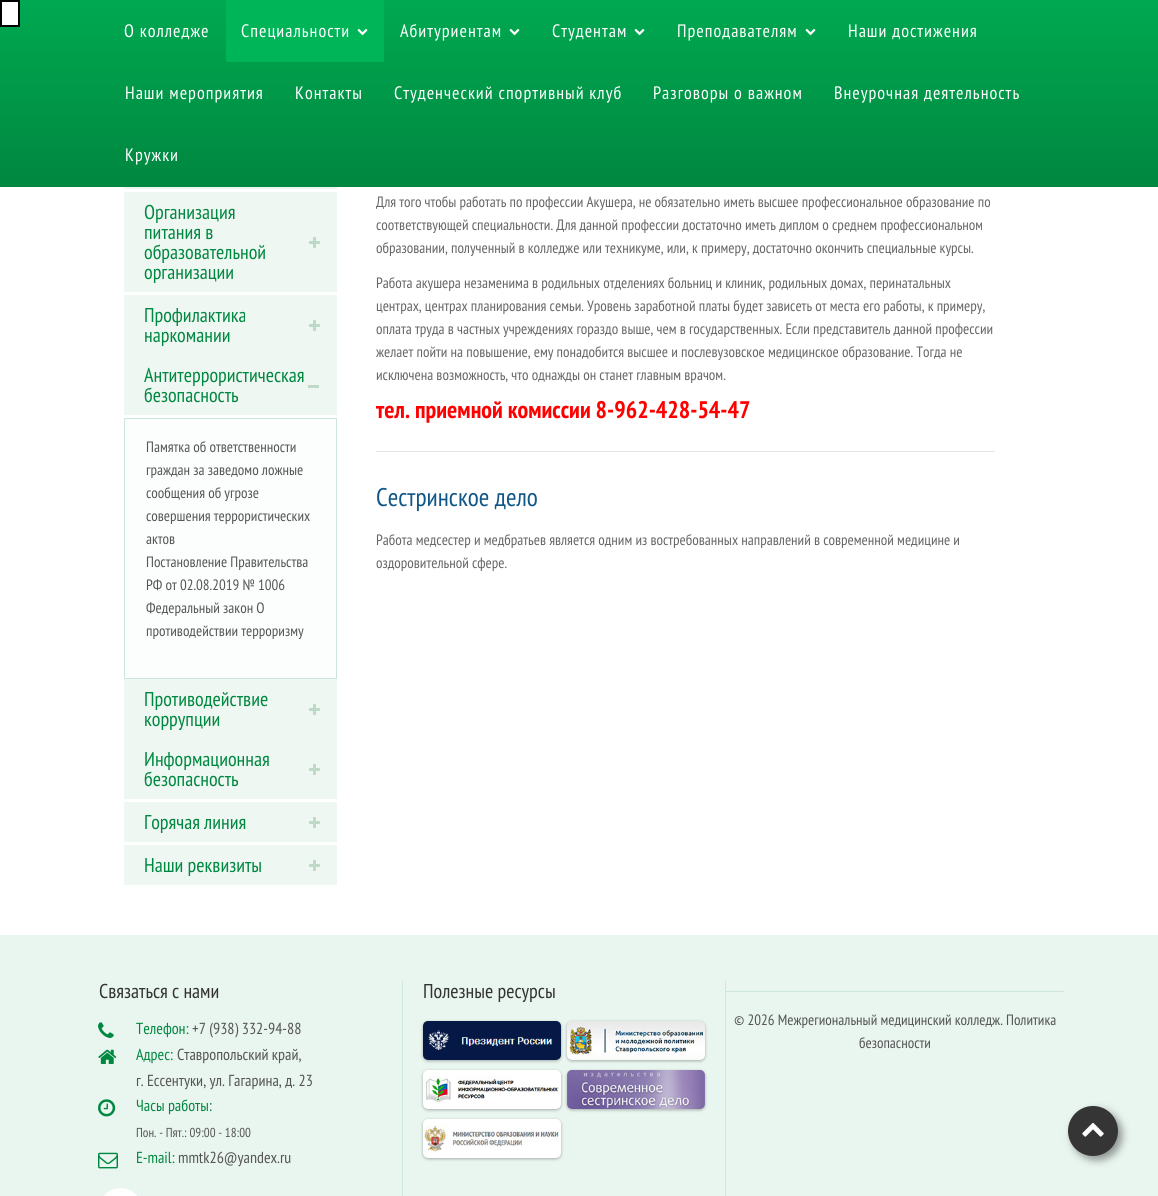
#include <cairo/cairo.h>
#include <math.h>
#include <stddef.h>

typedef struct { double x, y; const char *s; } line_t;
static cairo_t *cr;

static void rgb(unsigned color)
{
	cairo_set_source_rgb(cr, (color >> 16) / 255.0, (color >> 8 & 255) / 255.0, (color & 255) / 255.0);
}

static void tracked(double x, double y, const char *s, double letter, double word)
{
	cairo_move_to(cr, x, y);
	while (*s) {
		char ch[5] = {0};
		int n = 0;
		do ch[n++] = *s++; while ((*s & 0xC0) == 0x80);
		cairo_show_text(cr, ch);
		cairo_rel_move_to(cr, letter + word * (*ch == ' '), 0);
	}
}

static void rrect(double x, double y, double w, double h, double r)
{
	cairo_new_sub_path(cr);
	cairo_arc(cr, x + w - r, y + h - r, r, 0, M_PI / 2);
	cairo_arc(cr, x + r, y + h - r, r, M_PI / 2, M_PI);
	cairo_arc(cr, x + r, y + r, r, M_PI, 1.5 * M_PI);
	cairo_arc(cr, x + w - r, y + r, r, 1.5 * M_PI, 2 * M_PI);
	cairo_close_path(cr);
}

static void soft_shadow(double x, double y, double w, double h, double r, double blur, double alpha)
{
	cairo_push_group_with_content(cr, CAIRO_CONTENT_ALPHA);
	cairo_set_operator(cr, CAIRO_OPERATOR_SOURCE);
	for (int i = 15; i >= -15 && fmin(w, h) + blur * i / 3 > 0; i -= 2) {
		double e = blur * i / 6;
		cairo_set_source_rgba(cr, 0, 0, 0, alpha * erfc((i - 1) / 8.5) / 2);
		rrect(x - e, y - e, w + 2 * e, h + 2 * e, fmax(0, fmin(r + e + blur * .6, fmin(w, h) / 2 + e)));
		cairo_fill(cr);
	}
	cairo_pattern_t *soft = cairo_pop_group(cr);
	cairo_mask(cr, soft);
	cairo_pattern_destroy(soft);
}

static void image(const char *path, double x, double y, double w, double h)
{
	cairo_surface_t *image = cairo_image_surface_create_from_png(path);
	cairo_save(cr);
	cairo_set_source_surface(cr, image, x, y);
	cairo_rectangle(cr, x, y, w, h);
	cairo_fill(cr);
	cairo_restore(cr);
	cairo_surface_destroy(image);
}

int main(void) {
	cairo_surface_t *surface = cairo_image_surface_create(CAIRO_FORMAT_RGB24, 1158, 1196);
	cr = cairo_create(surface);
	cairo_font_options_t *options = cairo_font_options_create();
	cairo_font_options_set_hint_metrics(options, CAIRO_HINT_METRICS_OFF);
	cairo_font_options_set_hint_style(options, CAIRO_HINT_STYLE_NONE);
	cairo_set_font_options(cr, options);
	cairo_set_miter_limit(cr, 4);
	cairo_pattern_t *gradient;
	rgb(0xffffff);
	cairo_paint(cr);
	gradient = cairo_pattern_create_linear(579, 0, 579, 186);
	cairo_pattern_add_color_stop_rgba(gradient, 0, 0, 0.663, 0.318, 1);
	cairo_pattern_add_color_stop_rgba(gradient, 1, 0, 0.529, 0.251, 1);
	cairo_set_source(cr, gradient);
	cairo_pattern_destroy(gradient);
	cairo_rectangle(cr, 0, 0, 1158, 186);
	cairo_fill(cr);
	rgb(0xffffff);
	cairo_rectangle(cr, 1, 1, 18, 25);
	cairo_fill_preserve(cr);
	rgb(0x000000);
	cairo_stroke(cr);
	rgb(0x008740);
	cairo_rectangle(cr, 0, 186, 1158, 1);
	cairo_fill(cr);
	rgb(0x00b458);
	cairo_rectangle(cr, 226, 0, 158, 62);
	cairo_fill(cr);
	image("img/1.png", 357, 28, 11, 8);
	image("img/2.png", 509, 28, 11, 8);
	image("img/2.png", 634, 28, 11, 8);
	image("img/2.png", 805, 28, 11, 8);
	rgb(0xeff7f3);
	cairo_rectangle(cr, 124, 187, 213, 2);
	cairo_fill(cr);
	cairo_rectangle(cr, 124, 192, 213, 100);
	cairo_fill(cr);
	image("img/3.png", 309, 237, 11, 11);
	cairo_rectangle(cr, 124, 295, 213, 120);
	cairo_fill(cr);
	image("img/3.png", 309, 320, 11, 11);
	rgb(0xbed9c8);
	cairo_rectangle(cr, 308, 385, 11, 3);
	cairo_fill(cr);
	rgb(0xfcfefd);
	cairo_rectangle(cr, 124.5, 418.5, 212, 260);
	cairo_fill_preserve(cr);
	rgb(0xcce7d9);
	cairo_set_line_width(cr, 1);
	cairo_stroke(cr);
	rgb(0xeff7f3);
	cairo_rectangle(cr, 124, 679, 213, 120);
	cairo_fill(cr);
	image("img/3.png", 309, 704, 11, 11);
	image("img/3.png", 309, 764, 11, 11);
	cairo_rectangle(cr, 124, 802, 213, 40);
	cairo_fill(cr);
	image("img/3.png", 309, 817, 11, 11);
	cairo_rectangle(cr, 124, 845, 213, 40);
	cairo_fill(cr);
	image("img/3.png", 309, 860, 11, 11);
	rgb(0xe4e4e4);
	cairo_rectangle(cr, 376, 451, 619, 1);
	cairo_fill(cr);
	rgb(0xe9f5ef);
	cairo_rectangle(cr, 0, 935, 1158, 261);
	cairo_fill(cr);
	image("img/4.png", 98, 1022, 16, 16);
	image("img/5.png", 98, 1049, 19, 15);
	image("img/6.png", 98, 1099, 18, 18);
	image("img/7.png", 98, 1152, 20, 17);
	rgb(0xffffff);
	rrect(99, 1188, 43, 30, 21.5);
	cairo_fill(cr);
	rgb(0xcce7d9);
	cairo_rectangle(cr, 725, 981, 1, 215);
	cairo_fill(cr);
	cairo_rectangle(cr, 402, 981, 1, 215);
	cairo_fill(cr);
	rgb(0x000000);
	soft_shadow(423, 1022, 138, 39, 5, 1.5, 0.3);
	image("img/8.png", 423, 1021, 138, 39);
	soft_shadow(567, 1022, 138, 39, 5, 1.5, 0.3);
	image("img/9.png", 567, 1021, 138, 39);
	soft_shadow(423, 1071, 138, 39, 5, 1.5, 0.3);
	image("img/10.png", 423, 1070, 138, 39);
	soft_shadow(567, 1071, 138, 39, 5, 1.5, 0.3);
	image("img/11.png", 567, 1070, 138, 39);
	soft_shadow(423, 1120, 138, 39, 5, 1.5, 0.3);
	image("img/12.png", 423, 1119, 138, 39);
	rgb(0xcce7d9);
	cairo_rectangle(cr, 726, 991, 338, 1);
	cairo_fill(cr);
	rgb(0x020202);
	soft_shadow(1072, 1110, 50, 50, 25, 4, 0.4);
	rgb(0x343534);
	cairo_arc(cr, 1093, 1131, 25, 0, 2 * M_PI);
	cairo_fill(cr);
	image("img/13.png", 1082, 1122, 22, 15);
	cairo_select_font_face(cr, "PT Sans Narrow", CAIRO_FONT_SLANT_NORMAL, CAIRO_FONT_WEIGHT_NORMAL);
	cairo_set_font_size(cr, 18);
	rgb(0xffffff);
	{
		static const line_t items[] = {
			{124, 37, "О колледже"},
			{241, 37, "Специальности"},
			{400, 37, "Абитуриентам"},
			{552, 37, "Студентам"},
			{677, 37, "Преподавателям"},
			{848, 37, "Наши достижения"},
			{125, 99, "Наши мероприятия"},
			{295, 99, "Контакты"},
			{394, 99, "Студенческий спортивный клуб"},
			{653, 99, "Разговоры о важном"},
			{834, 99, "Внеурочная деятельность"},
			{125, 161, "Кружки"},
		};
		for (size_t i = 0; i < sizeof items / sizeof *items; i++) {
			tracked(items[i].x, items[i].y, items[i].s, 1, 0);
		}
	}
	cairo_set_font_size(cr, 20);
	rgb(0x008740);
	{
		static const line_t items[] = {
			{144, 219, "Организация"},
			{144, 239, "питания в"},
			{144, 259, "образовательной"},
			{144, 279, "организации"},
			{144, 322, "Профилактика"},
			{144, 342, "наркомании"},
			{144, 382, "Антитеррористическая"},
			{144, 402, "безопасность"},
		};
		for (size_t i = 0; i < sizeof items / sizeof *items; i++) {
			cairo_move_to(cr, items[i].x, items[i].y);
			cairo_show_text(cr, items[i].s);
		}
	}
	cairo_set_font_size(cr, 15);
	rgb(0x555555);
	{
		static const line_t items[] = {
			{146, 452, "Памятка об ответственности"},
			{146, 475, "граждан за заведомо ложные"},
			{146, 498, "сообщения об угрозе"},
			{146, 521, "совершения террористических"},
			{146, 544, "актов"},
			{146, 567, "Постановление Правительства"},
			{146, 590, "РФ от 02.08.2019 № 1006"},
			{146, 613, "Федеральный закон О"},
			{146, 636, "противодействии терроризму"},
		};
		for (size_t i = 0; i < sizeof items / sizeof *items; i++) {
			cairo_move_to(cr, items[i].x, items[i].y);
			cairo_show_text(cr, items[i].s);
		}
	}
	cairo_set_font_size(cr, 20);
	rgb(0x008740);
	{
		static const line_t items[] = {
			{144, 706, "Противодействие"},
			{144, 726, "коррупции"},
			{144, 766, "Информационная"},
			{144, 786, "безопасность"},
			{144, 829, "Горячая линия"},
			{144, 872, "Наши реквизиты"},
		};
		for (size_t i = 0; i < sizeof items / sizeof *items; i++) {
			cairo_move_to(cr, items[i].x, items[i].y);
			cairo_show_text(cr, items[i].s);
		}
	}
	cairo_set_font_size(cr, 15);
	rgb(0x666666);
	{
		static const line_t items[] = {
			{376, 207, "Для того чтобы работать по профессии Акушера, не обязательно иметь высшее профессиональное образование по"},
			{376, 230, "соответствующей специальности. Для данной профессии достаточно иметь диплом о среднем профессиональном"},
			{376, 253, "образовании, полученный в колледже или техникуме, или, к примеру, достаточно окончить специальные курсы."},
			{376, 288, "Работа акушера незаменима в родильных отделениях больниц и клиник, родильных домах, перинатальных"},
			{376, 311, "центрах, центрах планирования семьи. Уровень заработной платы будет зависеть от места его работы, к примеру,"},
			{376, 334, "оплата труда в частных учреждениях гораздо выше, чем в государственных. Если представитель данной профессии"},
			{376, 357, "желает пойти на повышение, ему понадобится высшее и послевузовское медицинское образование. Тогда не"},
			{376, 380, "исключена возможность, что однажды он станет главным врачом."},
		};
		for (size_t i = 0; i < sizeof items / sizeof *items; i++) {
			cairo_move_to(cr, items[i].x, items[i].y);
			cairo_show_text(cr, items[i].s);
		}
	}
	cairo_select_font_face(cr, "PT Sans Narrow", CAIRO_FONT_SLANT_NORMAL, CAIRO_FONT_WEIGHT_BOLD);
	cairo_set_font_size(cr, 24);
	rgb(0xff0000);
	cairo_move_to(cr, 376, 418);
	cairo_show_text(cr, "тел. приемной комиссии 8-962-428-54-47");
	cairo_select_font_face(cr, "PT Sans Narrow", CAIRO_FONT_SLANT_NORMAL, CAIRO_FONT_WEIGHT_NORMAL);
	cairo_set_font_size(cr, 25.5);
	rgb(0x105787);
	cairo_move_to(cr, 376, 506);
	cairo_show_text(cr, "Сестринское дело");
	cairo_set_font_size(cr, 15);
	rgb(0x666666);
	cairo_move_to(cr, 376, 545);
	cairo_show_text(cr, "Работа медсестер и медбратьев является одним из востребованных направлений в современной медицине и");
	cairo_move_to(cr, 376, 568);
	cairo_show_text(cr, "оздоровительной сфере.");
	cairo_set_font_size(cr, 20);
	rgb(0x333333);
	cairo_move_to(cr, 99, 998);
	cairo_show_text(cr, "Связаться с нами");
	cairo_set_font_size(cr, 16);
	rgb(0x008740);
	cairo_move_to(cr, 136, 1034);
	cairo_show_text(cr, "Телефон:");
	rgb(0x555555);
	cairo_move_to(cr, 192, 1034);
	cairo_show_text(cr, "+7 (938) 332-94-88");
	rgb(0x008740);
	cairo_move_to(cr, 136, 1060);
	cairo_show_text(cr, "Адрес:");
	rgb(0x555555);
	cairo_move_to(cr, 177, 1060);
	cairo_show_text(cr, "Ставропольский край,");
	cairo_move_to(cr, 136, 1086);
	cairo_show_text(cr, "г. Ессентуки, ул. Гагарина, д. 23");
	rgb(0x008740);
	cairo_move_to(cr, 136, 1111);
	cairo_show_text(cr, "Часы работы:");
	cairo_set_font_size(cr, 13);
	rgb(0x555555);
	cairo_move_to(cr, 136, 1137);
	cairo_show_text(cr, "Пон. - Пят.: 09:00 - 18:00");
	cairo_set_font_size(cr, 16);
	rgb(0x008740);
	cairo_move_to(cr, 136, 1163);
	cairo_show_text(cr, "E-mail:");
	rgb(0x555555);
	cairo_move_to(cr, 178, 1163);
	cairo_show_text(cr, "mmtk26@yandex.ru");
	cairo_set_font_size(cr, 20);
	rgb(0x333333);
	cairo_move_to(cr, 423, 998);
	cairo_show_text(cr, "Полезные ресурсы");
	cairo_set_font_size(cr, 15);
	rgb(0x555555);
	cairo_move_to(cr, 734, 1025);
	cairo_show_text(cr, "© 2026 Межрегиональный медицинский колледж. Политика");
	cairo_move_to(cr, 859, 1048);
	cairo_show_text(cr, "безопасности");
	cairo_surface_write_to_png(surface, "page.png");
	cairo_font_options_destroy(options);
	cairo_destroy(cr);
	cairo_surface_destroy(surface);
	return 0;
}
